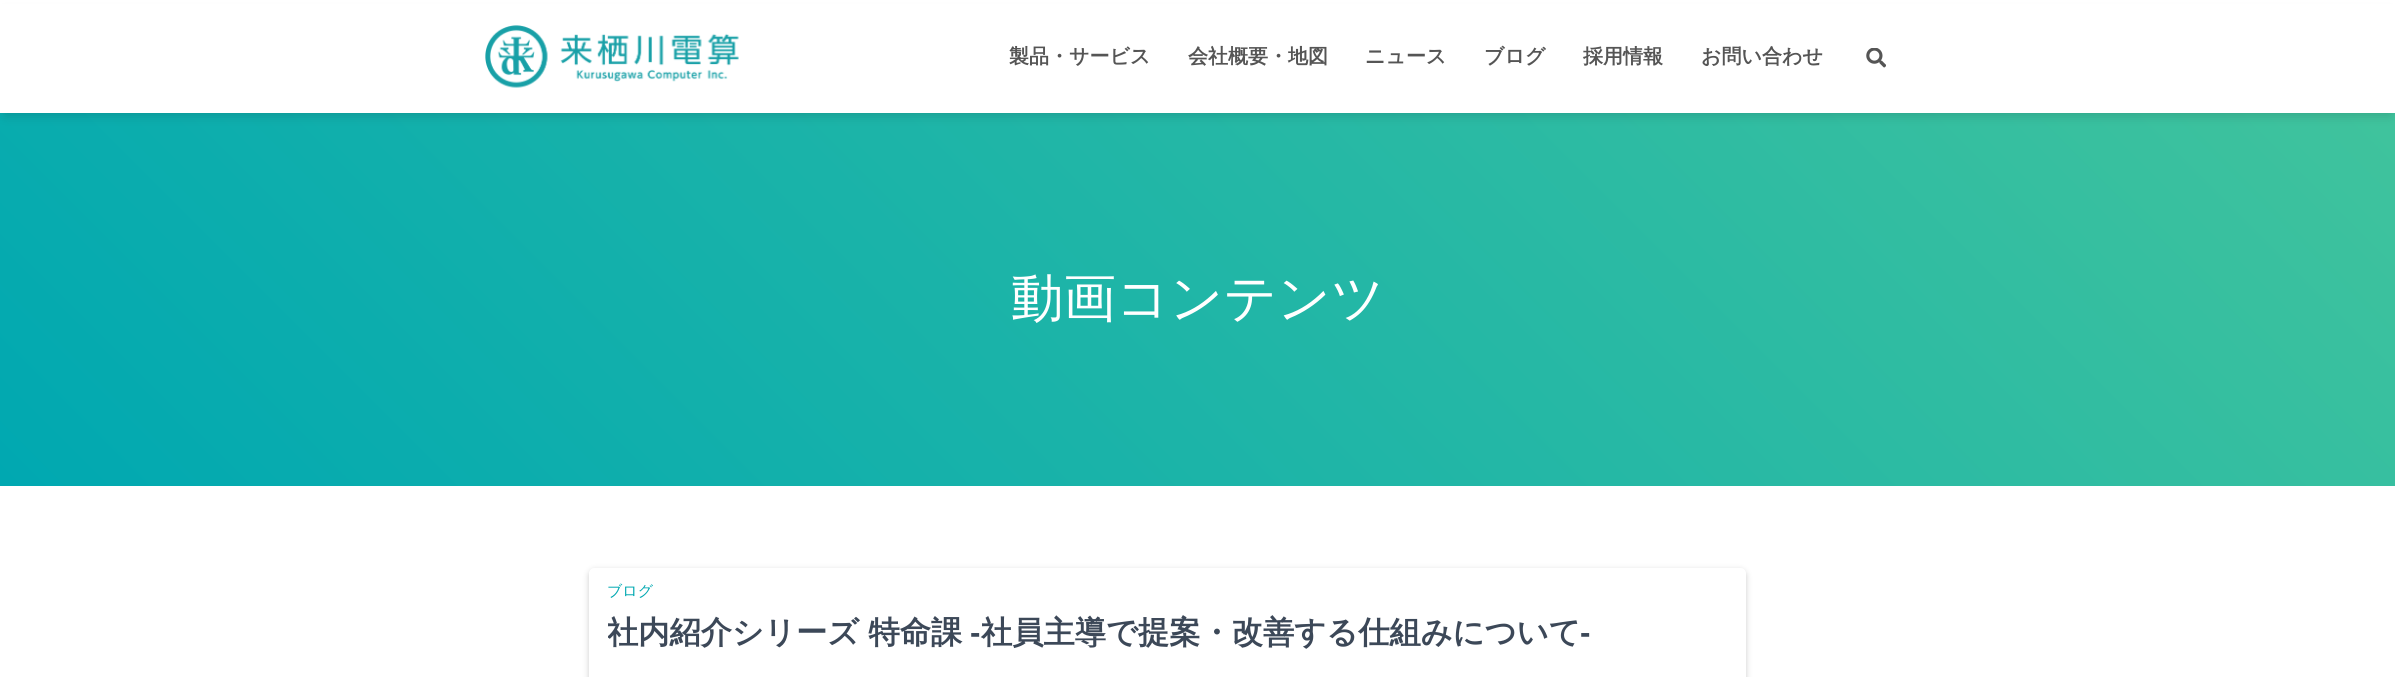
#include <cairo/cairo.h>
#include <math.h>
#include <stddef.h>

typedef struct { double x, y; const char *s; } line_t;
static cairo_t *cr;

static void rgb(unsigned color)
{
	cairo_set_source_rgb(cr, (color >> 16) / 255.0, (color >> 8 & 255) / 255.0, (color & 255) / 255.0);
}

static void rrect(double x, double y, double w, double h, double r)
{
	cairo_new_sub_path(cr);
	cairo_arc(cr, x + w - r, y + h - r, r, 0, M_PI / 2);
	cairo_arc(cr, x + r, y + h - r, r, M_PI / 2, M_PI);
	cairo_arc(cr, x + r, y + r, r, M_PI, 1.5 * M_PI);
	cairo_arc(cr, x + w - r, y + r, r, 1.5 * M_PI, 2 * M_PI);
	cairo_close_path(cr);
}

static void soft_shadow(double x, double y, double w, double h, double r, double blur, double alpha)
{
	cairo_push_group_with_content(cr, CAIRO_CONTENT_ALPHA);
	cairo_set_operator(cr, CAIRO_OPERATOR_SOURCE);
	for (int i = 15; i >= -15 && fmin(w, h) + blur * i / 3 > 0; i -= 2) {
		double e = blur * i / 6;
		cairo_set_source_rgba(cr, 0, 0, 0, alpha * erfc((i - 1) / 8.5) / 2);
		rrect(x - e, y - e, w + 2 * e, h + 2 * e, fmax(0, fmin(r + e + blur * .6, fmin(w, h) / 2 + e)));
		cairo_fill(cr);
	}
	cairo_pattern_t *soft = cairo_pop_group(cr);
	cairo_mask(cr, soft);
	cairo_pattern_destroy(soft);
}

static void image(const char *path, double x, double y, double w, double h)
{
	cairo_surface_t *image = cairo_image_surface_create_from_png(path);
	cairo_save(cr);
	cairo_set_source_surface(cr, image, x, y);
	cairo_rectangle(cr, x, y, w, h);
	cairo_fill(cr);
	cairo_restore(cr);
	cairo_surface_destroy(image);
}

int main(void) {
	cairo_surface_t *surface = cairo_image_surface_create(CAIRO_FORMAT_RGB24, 2395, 677);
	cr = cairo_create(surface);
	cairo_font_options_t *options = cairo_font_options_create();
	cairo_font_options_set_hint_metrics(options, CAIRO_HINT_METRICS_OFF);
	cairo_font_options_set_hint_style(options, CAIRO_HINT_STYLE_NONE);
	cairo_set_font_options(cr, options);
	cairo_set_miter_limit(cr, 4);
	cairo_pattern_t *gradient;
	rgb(0xffffff);
	cairo_paint(cr);
	gradient = cairo_pattern_create_linear(477, 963, 1918, -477);
	cairo_pattern_add_color_stop_rgba(gradient, 0, 0, 0.659, 0.694, 1);
	cairo_pattern_add_color_stop_rgba(gradient, 1, 0.259, 0.769, 0.612, 1);
	cairo_set_source(cr, gradient);
	cairo_pattern_destroy(gradient);
	cairo_rectangle(cr, 0, 113, 2395, 373);
	cairo_fill(cr);
	rgb(0x000000);
	soft_shadow(5, 13, 2385, 102, 0, 6, 0.15);
	rgb(0xffffff);
	cairo_rectangle(cr, 0, 4, 2395, 109);
	cairo_fill(cr);
	image("img/1.png", 485, 25, 254, 63);
	image("img/2.png", 1866, 48, 20, 20);
	cairo_save(cr);
	cairo_set_fill_rule(cr, CAIRO_FILL_RULE_EVEN_ODD);
	cairo_new_path(cr);
	cairo_move_to(cr, 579, 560);
	cairo_line_to(cr, 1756, 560);
	cairo_line_to(cr, 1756, 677);
	cairo_line_to(cr, 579, 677);
	cairo_close_path(cr);
	cairo_move_to(cr, 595, 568);
	cairo_line_to(cr, 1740, 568);
	cairo_curve_to(cr, 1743.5, 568, 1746, 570.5, 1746, 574);
	cairo_line_to(cr, 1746, 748);
	cairo_curve_to(cr, 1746, 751.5, 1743.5, 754, 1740, 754);
	cairo_line_to(cr, 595, 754);
	cairo_curve_to(cr, 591.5, 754, 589, 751.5, 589, 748);
	cairo_line_to(cr, 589, 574);
	cairo_curve_to(cr, 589, 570.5, 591.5, 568, 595, 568);
	cairo_close_path(cr);
	cairo_clip(cr);
	rgb(0xcccccc);
	soft_shadow(589, 570, 1157, 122, 6, 3, 1);
	cairo_restore(cr);
	cairo_select_font_face(cr, "WenQuanYi Zen Hei", CAIRO_FONT_SLANT_NORMAL, CAIRO_FONT_WEIGHT_BOLD);
	cairo_set_font_size(cr, 20);
	rgb(0x555555);
	{
		static const line_t items[] = {
			{1009, 63, "製品・サービス"},
			{1188, 63, "会社概要・地図"},
			{1365, 63, "ニュース"},
			{1484, 63, "ブログ"},
			{1583, 63, "採用情報"},
			{1701, 63, "お問い合わせ"},
		};
		for (size_t i = 0; i < sizeof items / sizeof *items; i++) {
			cairo_move_to(cr, items[i].x, items[i].y);
			cairo_show_text(cr, items[i].s);
		}
	}
	cairo_select_font_face(cr, "WenQuanYi Zen Hei Medium", CAIRO_FONT_SLANT_NORMAL, CAIRO_FONT_WEIGHT_NORMAL);
	cairo_set_font_size(cr, 52.5);
	rgb(0xffffff);
	cairo_move_to(cr, 1011, 316);
	cairo_show_text(cr, "動画コンテンツ");
	cairo_set_font_size(cr, 15);
	rgb(0x00a8b1);
	cairo_move_to(cr, 607, 596);
	cairo_show_text(cr, "ブログ");
	cairo_save(cr);
	cairo_rectangle(cr, 608, 610, 1120, 44);
	cairo_clip(cr);
	cairo_select_font_face(cr, "WenQuanYi Zen Hei", CAIRO_FONT_SLANT_NORMAL, CAIRO_FONT_WEIGHT_BOLD);
	cairo_set_font_size(cr, 31.25);
	rgb(0x3c4858);
	cairo_move_to(cr, 607, 643);
	cairo_show_text(cr, "社内紹介シリーズ 特命課");
	cairo_restore(cr);
	cairo_select_font_face(cr, "Liberation Sans", CAIRO_FONT_SLANT_NORMAL, CAIRO_FONT_WEIGHT_BOLD);
	cairo_set_font_size(cr, 31.25);
	rgb(0x3c4858);
	cairo_move_to(cr, 970, 643);
	cairo_show_text(cr, "-");
	cairo_select_font_face(cr, "WenQuanYi Zen Hei", CAIRO_FONT_SLANT_NORMAL, CAIRO_FONT_WEIGHT_BOLD);
	cairo_move_to(cr, 981, 643);
	cairo_show_text(cr, "社員主導で提案・改善する仕組みについて");
	cairo_select_font_face(cr, "Liberation Sans", CAIRO_FONT_SLANT_NORMAL, CAIRO_FONT_WEIGHT_BOLD);
	cairo_move_to(cr, 1580, 643);
	cairo_show_text(cr, "-");
	cairo_surface_write_to_png(surface, "page.png");
	cairo_font_options_destroy(options);
	cairo_destroy(cr);
	cairo_surface_destroy(surface);
	return 0;
}
